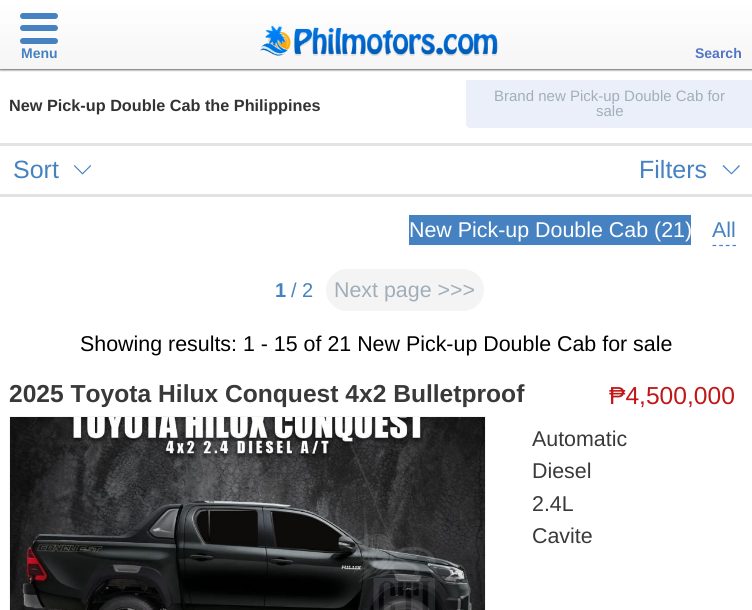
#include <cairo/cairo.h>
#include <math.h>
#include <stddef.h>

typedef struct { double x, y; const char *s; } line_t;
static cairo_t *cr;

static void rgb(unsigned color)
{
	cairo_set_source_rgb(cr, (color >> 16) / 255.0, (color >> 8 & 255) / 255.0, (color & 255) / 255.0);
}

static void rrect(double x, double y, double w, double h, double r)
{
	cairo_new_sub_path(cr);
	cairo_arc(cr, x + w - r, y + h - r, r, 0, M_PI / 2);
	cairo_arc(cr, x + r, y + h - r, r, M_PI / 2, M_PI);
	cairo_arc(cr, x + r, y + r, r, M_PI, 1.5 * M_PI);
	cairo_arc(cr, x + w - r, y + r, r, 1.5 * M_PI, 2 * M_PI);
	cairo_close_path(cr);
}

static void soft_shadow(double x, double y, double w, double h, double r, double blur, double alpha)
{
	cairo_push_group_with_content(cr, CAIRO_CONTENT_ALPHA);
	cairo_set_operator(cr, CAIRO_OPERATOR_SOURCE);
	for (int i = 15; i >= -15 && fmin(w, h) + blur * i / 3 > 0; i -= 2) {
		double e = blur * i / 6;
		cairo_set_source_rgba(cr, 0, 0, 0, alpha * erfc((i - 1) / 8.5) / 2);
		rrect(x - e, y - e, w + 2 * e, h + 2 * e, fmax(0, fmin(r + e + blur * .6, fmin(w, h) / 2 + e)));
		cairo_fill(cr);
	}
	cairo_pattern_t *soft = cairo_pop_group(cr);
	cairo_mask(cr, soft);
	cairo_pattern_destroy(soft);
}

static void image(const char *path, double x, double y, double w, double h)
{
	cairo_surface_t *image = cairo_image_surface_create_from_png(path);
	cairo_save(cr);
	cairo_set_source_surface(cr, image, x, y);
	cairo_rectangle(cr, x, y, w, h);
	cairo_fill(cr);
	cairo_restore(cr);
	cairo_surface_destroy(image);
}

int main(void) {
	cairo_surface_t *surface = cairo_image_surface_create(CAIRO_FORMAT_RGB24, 752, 610);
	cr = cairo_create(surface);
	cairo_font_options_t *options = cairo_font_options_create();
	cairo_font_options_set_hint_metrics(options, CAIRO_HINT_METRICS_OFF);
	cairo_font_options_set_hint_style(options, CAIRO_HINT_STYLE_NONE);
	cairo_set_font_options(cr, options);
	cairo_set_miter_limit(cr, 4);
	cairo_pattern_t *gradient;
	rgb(0xffffff);
	cairo_paint(cr);
	rgb(0x636363);
	soft_shadow(0, 1, 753, 69, 0, 1, 1);
	gradient = cairo_pattern_create_linear(376, 0, 376, 69);
	cairo_pattern_add_color_stop_rgba(gradient, 0, 1, 1, 1, 1);
	cairo_pattern_add_color_stop_rgba(gradient, 1, 0.961, 0.961, 0.961, 1);
	cairo_set_source(cr, gradient);
	cairo_pattern_destroy(gradient);
	cairo_rectangle(cr, 0, 0, 752, 69);
	cairo_fill(cr);
	rgb(0x4682c2);
	rrect(20, 13, 38, 6, 3);
	cairo_fill(cr);
	rrect(20, 25, 38, 6, 3);
	cairo_fill(cr);
	rrect(20, 38, 38, 6, 3);
	cairo_fill(cr);
	image("img/1.png", 260, 25, 238, 31);
	rgb(0xebeff9);
	cairo_new_path(cr);
	cairo_move_to(cr, 466, 80);
	cairo_line_to(cr, 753, 80);
	cairo_line_to(cr, 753, 128);
	cairo_line_to(cr, 470, 128);
	cairo_curve_to(cr, 468, 128, 466, 126, 466, 124);
	cairo_close_path(cr);
	cairo_fill(cr);
	rgb(0xe3e3e3);
	cairo_rectangle(cr, 0, 143, 752, 3);
	cairo_fill(cr);
	cairo_rectangle(cr, 0, 194, 752, 3);
	cairo_fill(cr);
	image("img/2.png", 74, 165, 17, 10);
	rgb(0x4682c2);
	cairo_new_path(cr);
	cairo_move_to(cr, 740, 166);
	cairo_line_to(cr, 739, 165);
	cairo_line_to(cr, 731.5, 173);
	cairo_line_to(cr, 723.5, 165);
	cairo_line_to(cr, 722.5, 166);
	cairo_line_to(cr, 731.5, 174.5);
	cairo_close_path(cr);
	cairo_fill(cr);
	cairo_rectangle(cr, 409, 215, 282, 30);
	cairo_fill(cr);
	cairo_new_path(cr);
	cairo_move_to(cr, 712.5, 245.5);
	cairo_line_to(cr, 736, 245.5);
	cairo_set_line_width(cr, 1.2);
	cairo_set_dash(cr, (double[]){3.75, 2.91}, 2, 0);
	cairo_stroke(cr);
	rgb(0xf4f4f4);
	rrect(326, 269, 158, 42, 21);
	cairo_fill(cr);
	image("img/3.png", 10, 417, 475, 193);
	cairo_rectangle(cr, 9.5, 416.5, 476, 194);
	rgb(0xf3f3f3);
	cairo_set_line_width(cr, 1);
	cairo_set_dash(cr, NULL, 0, 0);
	cairo_stroke(cr);
	cairo_select_font_face(cr, "Liberation Sans", CAIRO_FONT_SLANT_NORMAL, CAIRO_FONT_WEIGHT_BOLD);
	cairo_set_font_size(cr, 14);
	rgb(0x4682c2);
	cairo_move_to(cr, 21, 58);
	cairo_show_text(cr, "Menu");
	rgb(0x5075c2);
	cairo_move_to(cr, 695, 58);
	cairo_show_text(cr, "Search");
	cairo_set_font_size(cr, 16.25);
	rgb(0x333333);
	cairo_move_to(cr, 9, 111);
	cairo_show_text(cr, "New Pick-up Double Cab the Philippines");
	cairo_select_font_face(cr, "Liberation Sans", CAIRO_FONT_SLANT_NORMAL, CAIRO_FONT_WEIGHT_NORMAL);
	cairo_set_font_size(cr, 15);
	rgb(0xa1aeb9);
	cairo_move_to(cr, 494, 101);
	cairo_show_text(cr, "Brand new Pick-up Double Cab for");
	cairo_move_to(cr, 596, 116);
	cairo_show_text(cr, "sale");
	cairo_set_font_size(cr, 25);
	rgb(0x4682c2);
	cairo_move_to(cr, 13, 178);
	cairo_show_text(cr, "Sort");
	cairo_move_to(cr, 639, 178);
	cairo_show_text(cr, "Filters");
	cairo_set_font_size(cr, 21.4);
	rgb(0xffffff);
	cairo_move_to(cr, 409, 237);
	cairo_show_text(cr, "New Pick-up Double Cab (21)");
	rgb(0x4682c2);
	cairo_move_to(cr, 712, 237);
	cairo_show_text(cr, "All");
	cairo_select_font_face(cr, "Liberation Sans", CAIRO_FONT_SLANT_NORMAL, CAIRO_FONT_WEIGHT_BOLD);
	cairo_set_font_size(cr, 20);
	cairo_move_to(cr, 275, 297);
	cairo_show_text(cr, "1");
	cairo_select_font_face(cr, "Liberation Sans", CAIRO_FONT_SLANT_NORMAL, CAIRO_FONT_WEIGHT_NORMAL);
	cairo_move_to(cr, 291, 297);
	cairo_show_text(cr, "/ 2");
	cairo_set_font_size(cr, 21.4);
	rgb(0xa1aeb9);
	cairo_move_to(cr, 334, 297);
	cairo_show_text(cr, "Next page >>>");
	rgb(0x000000);
	cairo_move_to(cr, 80, 351);
	cairo_show_text(cr, "Showing results: 1 - 15 of 21 New Pick-up Double Cab for sale");
	cairo_select_font_face(cr, "Liberation Sans", CAIRO_FONT_SLANT_NORMAL, CAIRO_FONT_WEIGHT_BOLD);
	cairo_set_font_size(cr, 24.6);
	rgb(0x393939);
	cairo_move_to(cr, 9, 402);
	cairo_show_text(cr, "2025 Toyota Hilux Conquest 4x2 Bulletproof");
	cairo_select_font_face(cr, "Liberation Sans", CAIRO_FONT_SLANT_NORMAL, CAIRO_FONT_WEIGHT_NORMAL);
	rgb(0xc01818);
	cairo_move_to(cr, 609, 404);
	cairo_show_text(cr, "₱4,500,000");
	cairo_set_font_size(cr, 21.4);
	rgb(0x393939);
	{
		static const line_t items[] = {
			{532, 446, "Automatic"},
			{532, 478, "Diesel"},
			{532, 511, "2.4L"},
			{532, 543, "Cavite"},
		};
		for (size_t i = 0; i < sizeof items / sizeof *items; i++) {
			cairo_move_to(cr, items[i].x, items[i].y);
			cairo_show_text(cr, items[i].s);
		}
	}
	cairo_surface_write_to_png(surface, "page.png");
	cairo_font_options_destroy(options);
	cairo_destroy(cr);
	cairo_surface_destroy(surface);
	return 0;
}
